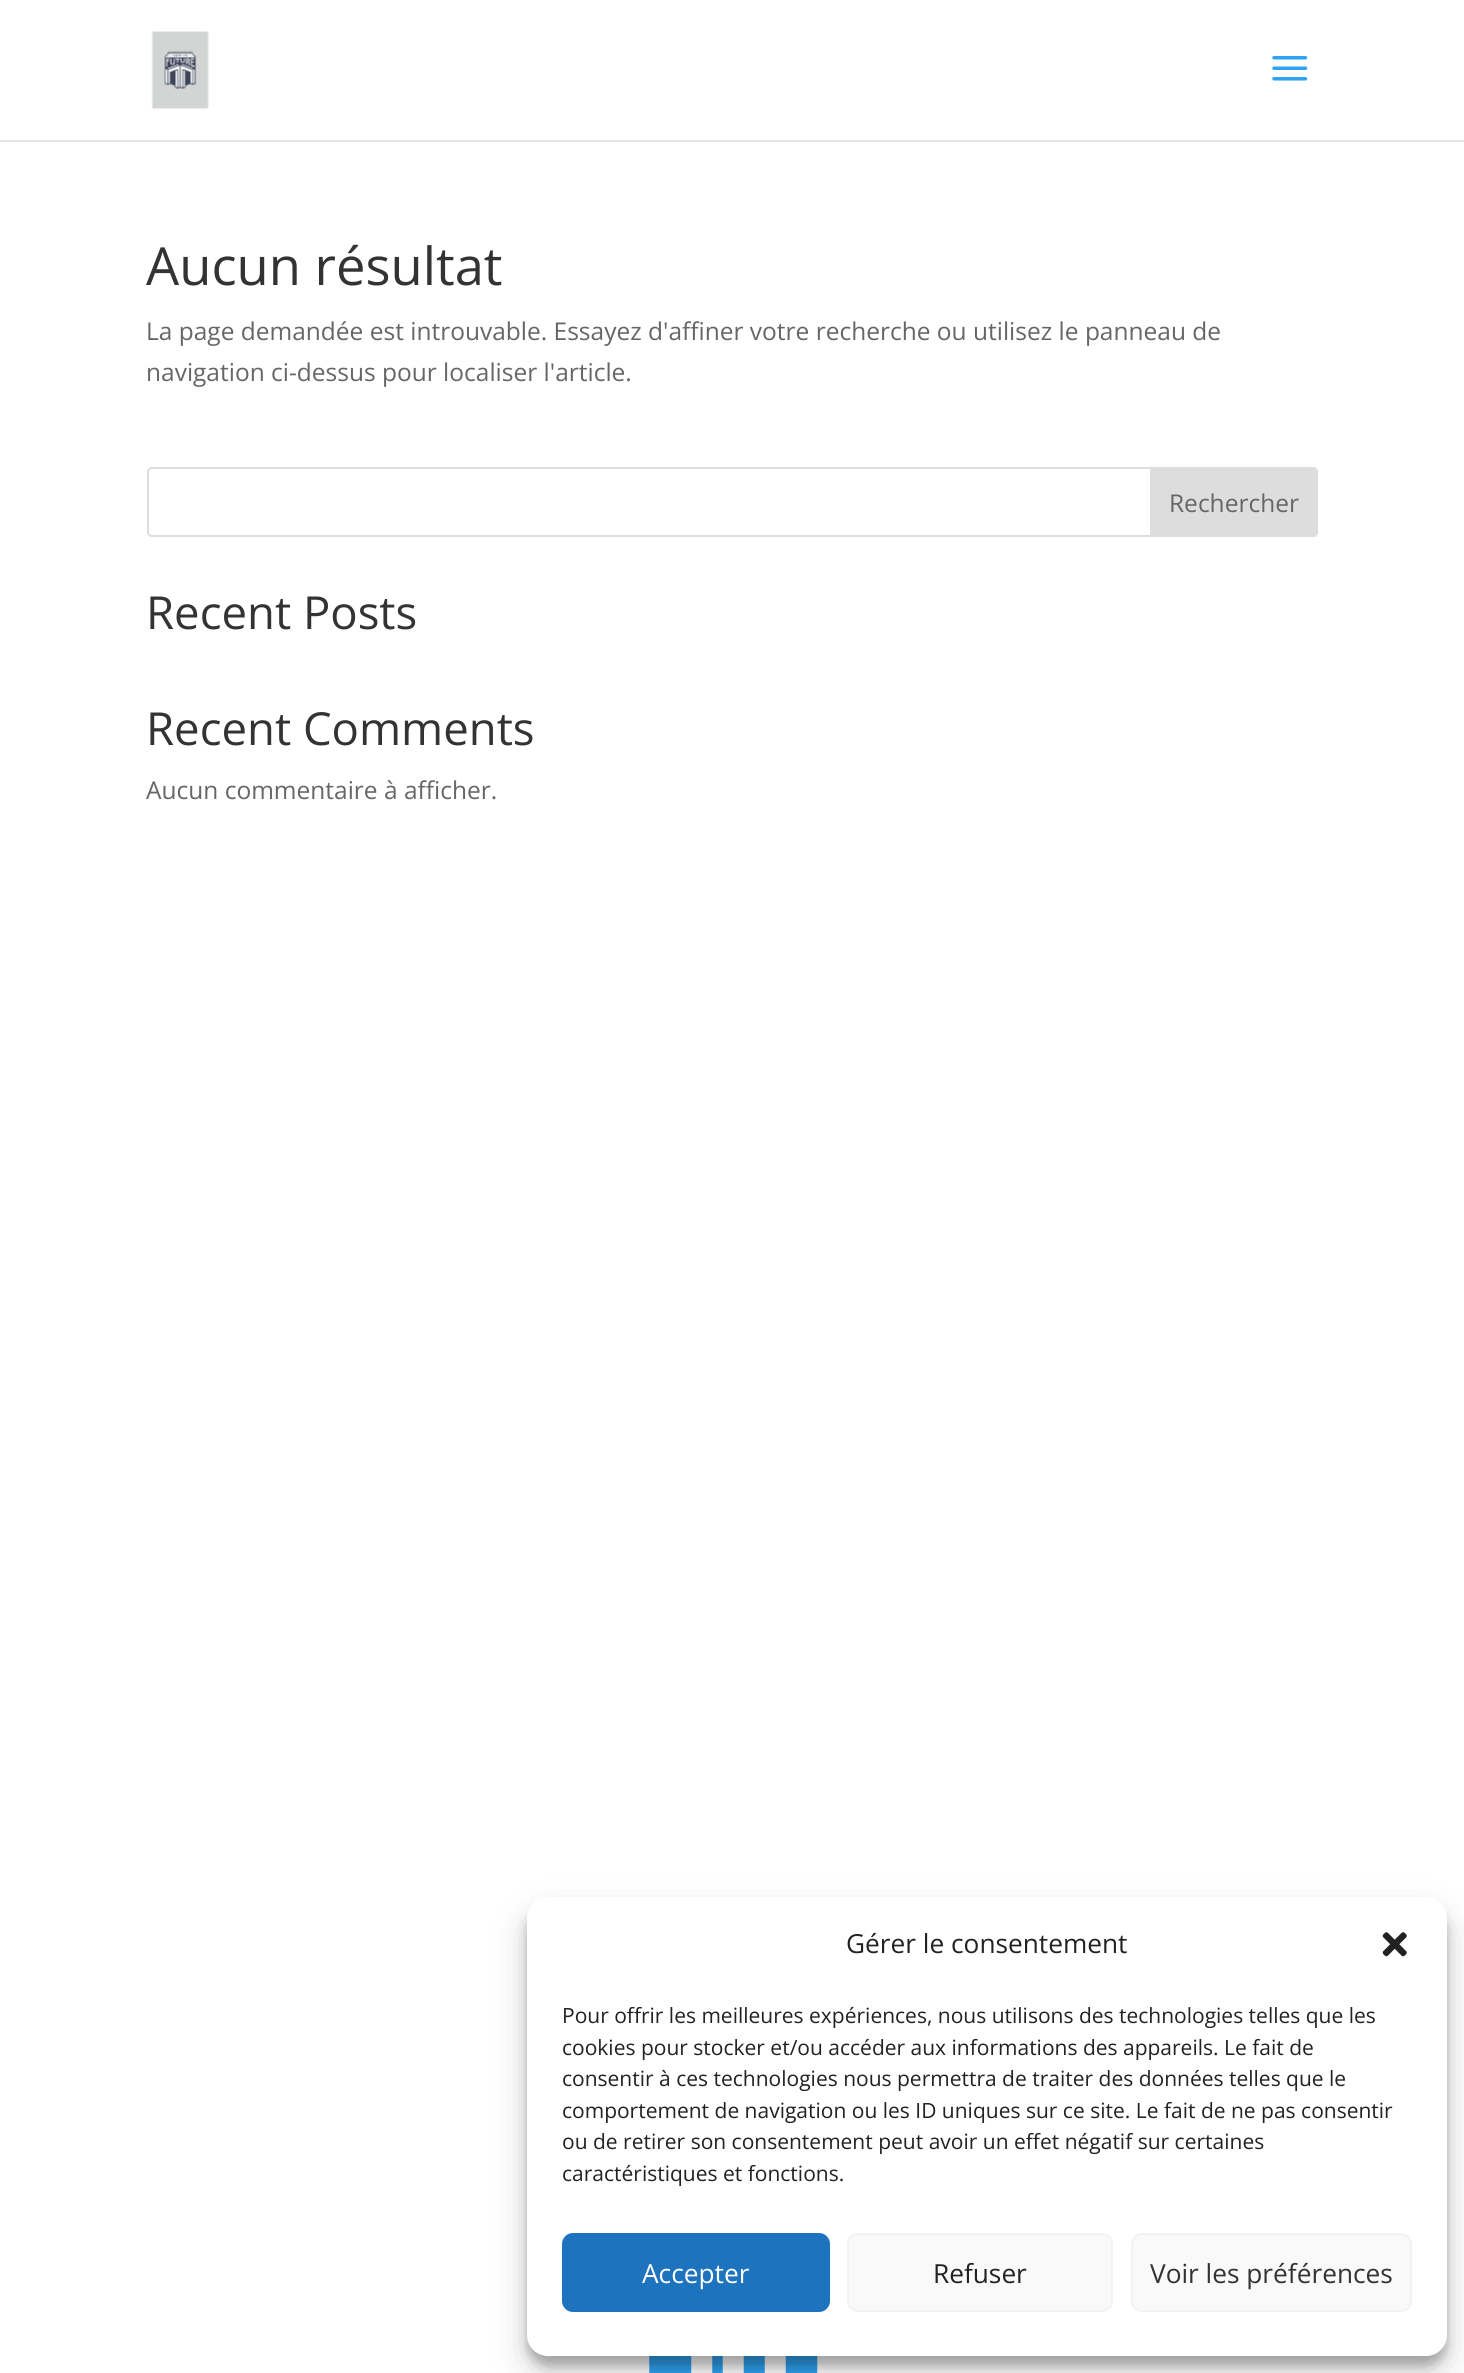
#include <cairo/cairo.h>
#include <math.h>
#include <stddef.h>

typedef struct { double x, y; const char *s; } line_t;
static cairo_t *cr;

static void rgb(unsigned color)
{
	cairo_set_source_rgb(cr, (color >> 16) / 255.0, (color >> 8 & 255) / 255.0, (color & 255) / 255.0);
}

static void rrect(double x, double y, double w, double h, double r)
{
	cairo_new_sub_path(cr);
	cairo_arc(cr, x + w - r, y + h - r, r, 0, M_PI / 2);
	cairo_arc(cr, x + r, y + h - r, r, M_PI / 2, M_PI);
	cairo_arc(cr, x + r, y + r, r, M_PI, 1.5 * M_PI);
	cairo_arc(cr, x + w - r, y + r, r, 1.5 * M_PI, 2 * M_PI);
	cairo_close_path(cr);
}

static void soft_shadow(double x, double y, double w, double h, double r, double blur, double alpha)
{
	cairo_push_group_with_content(cr, CAIRO_CONTENT_ALPHA);
	cairo_set_operator(cr, CAIRO_OPERATOR_SOURCE);
	for (int i = 15; i >= -15 && fmin(w, h) + blur * i / 3 > 0; i -= 2) {
		double e = blur * i / 6;
		cairo_set_source_rgba(cr, 0, 0, 0, alpha * erfc((i - 1) / 8.5) / 2);
		rrect(x - e, y - e, w + 2 * e, h + 2 * e, fmax(0, fmin(r + e + blur * .6, fmin(w, h) / 2 + e)));
		cairo_fill(cr);
	}
	cairo_pattern_t *soft = cairo_pop_group(cr);
	cairo_mask(cr, soft);
	cairo_pattern_destroy(soft);
}

static void image(const char *path, double x, double y, double w, double h)
{
	cairo_surface_t *image = cairo_image_surface_create_from_png(path);
	cairo_save(cr);
	cairo_set_source_surface(cr, image, x, y);
	cairo_rectangle(cr, x, y, w, h);
	cairo_fill(cr);
	cairo_restore(cr);
	cairo_surface_destroy(image);
}

int main(void) {
	cairo_surface_t *surface = cairo_image_surface_create(CAIRO_FORMAT_RGB24, 1464, 2373);
	cr = cairo_create(surface);
	cairo_font_options_t *options = cairo_font_options_create();
	cairo_font_options_set_hint_metrics(options, CAIRO_HINT_METRICS_OFF);
	cairo_font_options_set_hint_style(options, CAIRO_HINT_STYLE_NONE);
	cairo_set_font_options(cr, options);
	cairo_set_miter_limit(cr, 4);
	rgb(0xffffff);
	cairo_paint(cr);
	rgb(0xe6e6e6);
	cairo_new_path(cr);
	cairo_move_to(cr, 0, 140);
	cairo_line_to(cr, 0, 142);
	cairo_line_to(cr, 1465, 142);
	cairo_line_to(cr, 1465, 2);
	cairo_line_to(cr, 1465, 140);
	cairo_close_path(cr);
	cairo_fill(cr);
	image("img/1.png", 151, 31, 58, 78);
	image("img/2.png", 1272, 56, 36, 25);
	rrect(148, 468, 1169, 68, 4);
	rgb(0xdddddd);
	cairo_stroke(cr);
	cairo_new_path(cr);
	cairo_move_to(cr, 1151, 468);
	cairo_line_to(cr, 1313, 468);
	cairo_curve_to(cr, 1315, 468, 1317, 470, 1317, 472);
	cairo_line_to(cr, 1317, 532);
	cairo_curve_to(cr, 1317, 534, 1315, 536, 1313, 536);
	cairo_line_to(cr, 1151, 536);
	cairo_close_path(cr);
	cairo_fill_preserve(cr);
	cairo_stroke(cr);
	image("img/3.png", 649, 2356, 169, 17);
	rgb(0x000000);
	soft_shadow(527, 1908, 920, 458, 21, 5, 0.23);
	soft_shadow(527, 1915, 920, 458, 21, 17.5, 0.19);
	rgb(0xffffff);
	rrect(527, 1897, 920, 459, 21);
	cairo_fill(cr);
	image("img/4.png", 1382, 1932, 25, 25);
	rgb(0x1e73be);
	rrect(563, 2234, 266, 77, 10);
	cairo_fill_preserve(cr);
	cairo_stroke(cr);
	rgb(0xf9f9f9);
	rrect(848, 2234, 264, 77, 10);
	cairo_fill_preserve(cr);
	rgb(0xf2f2f2);
	cairo_stroke(cr);
	rgb(0xf9f9f9);
	rrect(1132, 2234, 279, 77, 10);
	cairo_fill_preserve(cr);
	rgb(0xf2f2f2);
	cairo_stroke(cr);
	cairo_select_font_face(cr, "Open Sans", CAIRO_FONT_SLANT_NORMAL, CAIRO_FONT_WEIGHT_NORMAL);
	cairo_set_font_size(cr, 52.5);
	rgb(0x333333);
	cairo_move_to(cr, 146, 285);
	cairo_show_text(cr, "Aucun résultat");
	cairo_set_font_size(cr, 24.5);
	rgb(0x666666);
	{
		static const line_t items[] = {
			{146, 340, "La page demandée est introuvable. Essayez d'affiner votre recherche ou utilisez le panneau de"},
			{146, 381, "navigation ci-dessus pour localiser l'article."},
			{1169, 512, "Rechercher"},
		};
		for (size_t i = 0; i < sizeof items / sizeof *items; i++) {
			cairo_move_to(cr, items[i].x, items[i].y);
			cairo_show_text(cr, items[i].s);
		}
	}
	cairo_set_font_size(cr, 45.5);
	rgb(0x333333);
	cairo_move_to(cr, 146, 629);
	cairo_show_text(cr, "Recent Posts");
	cairo_move_to(cr, 146, 745);
	cairo_show_text(cr, "Recent Comments");
	cairo_set_font_size(cr, 24.5);
	rgb(0x666666);
	cairo_move_to(cr, 146, 799);
	cairo_show_text(cr, "Aucun commentaire à afficher.");
	cairo_set_font_size(cr, 26.25);
	rgb(0x222222);
	cairo_move_to(cr, 846, 1953);
	cairo_show_text(cr, "Gérer le consentement");
	cairo_set_font_size(cr, 21);
	{
		static const line_t items[] = {
			{562, 2023, "Pour offrir les meilleures expériences, nous utilisons des technologies telles que les"},
			{562, 2055, "cookies pour stocker et/ou accéder aux informations des appareils. Le fait de"},
			{562, 2086, "consentir à ces technologies nous permettra de traiter des données telles que le"},
			{562, 2118, "comportement de navigation ou les ID uniques sur ce site. Le fait de ne pas consentir"},
			{562, 2149, "ou de retirer son consentement peut avoir un effet négatif sur certaines"},
			{562, 2181, "caractéristiques et fonctions."},
		};
		for (size_t i = 0; i < sizeof items / sizeof *items; i++) {
			cairo_move_to(cr, items[i].x, items[i].y);
			cairo_show_text(cr, items[i].s);
		}
	}
	cairo_set_font_size(cr, 26.25);
	rgb(0xffffff);
	cairo_move_to(cr, 642, 2283);
	cairo_show_text(cr, "Accepter");
	rgb(0x222222);
	cairo_move_to(cr, 933, 2283);
	cairo_show_text(cr, "Refuser");
	rgb(0x333333);
	cairo_move_to(cr, 1150, 2283);
	cairo_show_text(cr, "Voir les préférences");
	cairo_surface_write_to_png(surface, "page.png");
	cairo_font_options_destroy(options);
	cairo_destroy(cr);
	cairo_surface_destroy(surface);
	return 0;
}
